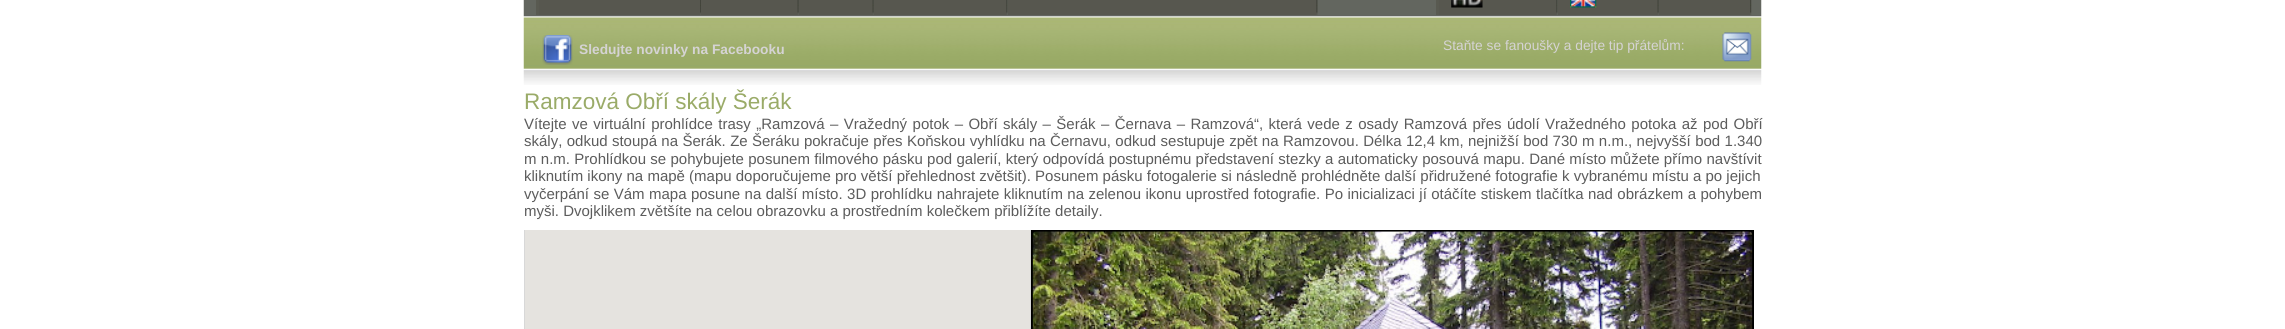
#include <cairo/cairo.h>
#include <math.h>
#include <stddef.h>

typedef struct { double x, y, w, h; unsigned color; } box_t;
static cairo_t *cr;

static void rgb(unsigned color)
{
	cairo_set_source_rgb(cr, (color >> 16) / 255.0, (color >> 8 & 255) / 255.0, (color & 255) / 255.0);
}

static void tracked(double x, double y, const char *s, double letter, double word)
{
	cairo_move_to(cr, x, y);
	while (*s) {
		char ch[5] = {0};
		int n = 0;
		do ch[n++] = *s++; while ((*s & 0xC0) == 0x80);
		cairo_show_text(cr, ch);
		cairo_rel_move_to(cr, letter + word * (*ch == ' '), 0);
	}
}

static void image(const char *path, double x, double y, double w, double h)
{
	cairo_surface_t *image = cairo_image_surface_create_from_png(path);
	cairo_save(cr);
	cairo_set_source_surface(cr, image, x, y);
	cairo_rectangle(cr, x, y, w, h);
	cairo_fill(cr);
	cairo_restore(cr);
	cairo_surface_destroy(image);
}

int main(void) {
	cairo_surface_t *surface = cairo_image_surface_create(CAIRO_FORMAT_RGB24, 2285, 329);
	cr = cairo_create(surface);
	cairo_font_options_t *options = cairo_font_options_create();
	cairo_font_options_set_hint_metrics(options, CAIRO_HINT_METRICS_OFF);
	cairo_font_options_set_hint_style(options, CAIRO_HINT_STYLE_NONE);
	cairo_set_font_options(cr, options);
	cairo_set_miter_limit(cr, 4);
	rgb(0xffffff);
	cairo_paint(cr);
	image("img/1.png", 523, 0, 1239, 85);
	rgb(0x595a51);
	cairo_rectangle(cr, 536, 0, 3, 15);
	cairo_fill(cr);
	rgb(0x57574f);
	cairo_rectangle(cr, 539, 0, 161, 15);
	cairo_fill(cr);
	image("img/2.png", 700, 0, 1, 15);
	cairo_rectangle(cr, 701, 0, 97, 15);
	cairo_fill(cr);
	image("img/3.png", 797, 0, 2, 15);
	cairo_rectangle(cr, 799, 0, 74, 15);
	cairo_fill(cr);
	image("img/3.png", 872, 0, 2, 15);
	cairo_rectangle(cr, 874, 0, 133, 15);
	cairo_fill(cr);
	image("img/4.png", 1006, 0, 2, 15);
	cairo_rectangle(cr, 1008, 0, 309, 15);
	cairo_fill(cr);
	image("img/4.png", 1316, 0, 2, 15);
	rgb(0x595a51);
	cairo_rectangle(cr, 1436, 0, 3, 15);
	cairo_fill(cr);
	rgb(0x57574f);
	cairo_rectangle(cr, 1439, 0, 118, 15);
	cairo_fill(cr);
	image("img/5.png", 1451, 0, 32, 8);
	image("img/4.png", 1556, 0, 2, 15);
	cairo_rectangle(cr, 1558, 0, 100, 15);
	cairo_fill(cr);
	image("img/6.png", 1570, 0, 27, 8);
	image("img/3.png", 1657, 0, 2, 15);
	cairo_rectangle(cr, 1659, 0, 91, 15);
	cairo_fill(cr);
	image("img/7.png", 1750, 0, 2, 15);
	image("img/8.png", 542, 35, 31, 30);
	image("img/9.png", 1722, 32, 30, 30);
	{
		static const box_t items[] = {
			{1030, 230, 1, 99, 0xd8d8d8},
			{524, 230, 1, 99, 0xd8d8d8},
			{525, 230, 505, 99, 0xe5e3df},
			{1031, 230, 723, 99, 0x000000},
		};
		for (size_t i = 0; i < sizeof items / sizeof *items; i++) {
			rgb(items[i].color);
			cairo_rectangle(cr, items[i].x, items[i].y, items[i].w, items[i].h);
			cairo_fill(cr);
		}
	}
	image("img/10.png", 1032, 231, 721, 98);
	cairo_select_font_face(cr, "Liberation Sans", CAIRO_FONT_SLANT_NORMAL, CAIRO_FONT_WEIGHT_BOLD);
	cairo_set_font_size(cr, 13.75);
	rgb(0xd5d3d4);
	cairo_move_to(cr, 579, 54);
	cairo_show_text(cr, "Sledujte novinky na Facebooku");
	cairo_select_font_face(cr, "Liberation Sans", CAIRO_FONT_SLANT_NORMAL, CAIRO_FONT_WEIGHT_NORMAL);
	cairo_move_to(cr, 1443, 50);
	cairo_show_text(cr, "Staňte se fanoušky a dejte tip přátelům:");
	cairo_set_font_size(cr, 22.5);
	rgb(0x9aab68);
	cairo_move_to(cr, 524, 109);
	cairo_show_text(cr, "Ramzová Obří skály Šerák");
	cairo_set_font_size(cr, 15);
	rgb(0x5c5c5c);
	tracked(524, 129, "Vítejte ve virtuální prohlídce trasy „Ramzová – Vražedný potok – Obří skály – Šerák – Černava – Ramzová“, která vede z osady Ramzová přes údolí Vražedného potoka až pod Obří", 0, 1.25);
	tracked(524, 146, "skály, odkud stoupá na Šerák. Ze Šeráku pokračuje přes Koňskou vyhlídku na Černavu, odkud sestupuje zpět na Ramzovou. Délka 12,4 km, nejnižší bod 730 m n.m., nejvyšší bod 1.340", 0, 0.2);
	tracked(524, 164, "m n.m. Prohlídkou se pohybujete posunem filmového pásku pod galerií, který odpovídá postupnému představení stezky a automaticky posouvá mapu. Dané místo můžete přímo navštívit", 0, 0.15);
	cairo_move_to(cr, 524, 181);
	cairo_show_text(cr, "kliknutím ikony na mapě (mapu doporučujeme pro větší přehlednost zvětšit). Posunem pásku fotogalerie si následně prohlédněte další přidružené fotografie k vybranému místu a po jejich");
	tracked(524, 199, "vyčerpání se Vám mapa posune na další místo. 3D prohlídku nahrajete kliknutím na zelenou ikonu uprostřed fotografie. Po inicializaci jí otáčíte stiskem tlačítka nad obrázkem a pohybem", 0, 0.25);
	cairo_move_to(cr, 524, 216);
	cairo_show_text(cr, "myši. Dvojklikem zvětšíte na celou obrazovku a prostředním kolečkem přiblížíte detaily.");
	cairo_surface_write_to_png(surface, "page.png");
	cairo_font_options_destroy(options);
	cairo_destroy(cr);
	cairo_surface_destroy(surface);
	return 0;
}
